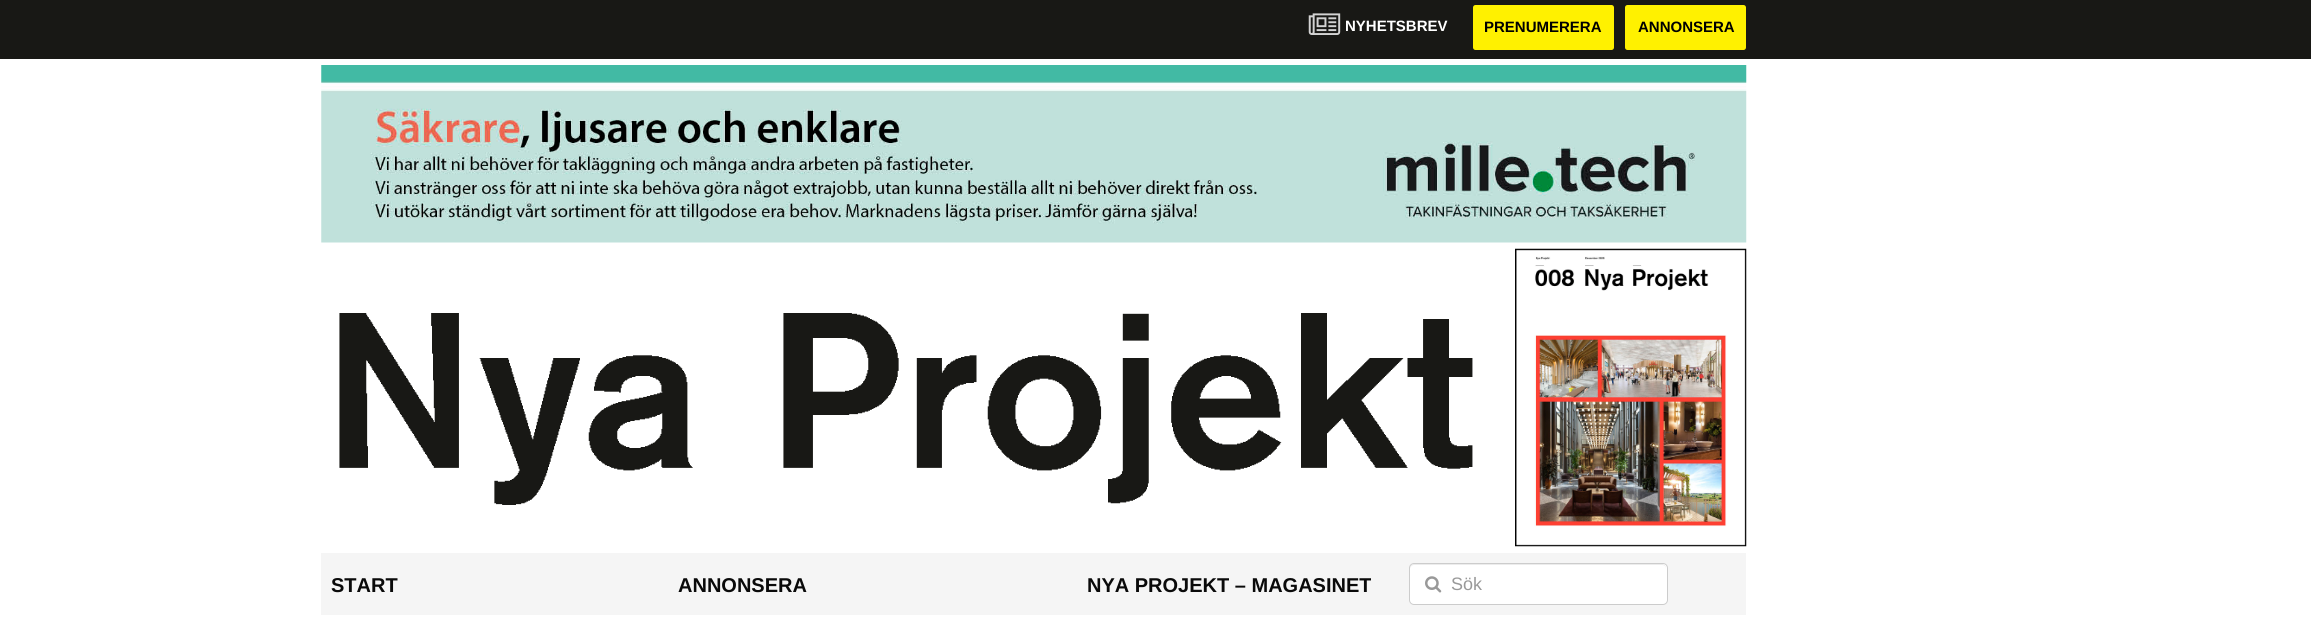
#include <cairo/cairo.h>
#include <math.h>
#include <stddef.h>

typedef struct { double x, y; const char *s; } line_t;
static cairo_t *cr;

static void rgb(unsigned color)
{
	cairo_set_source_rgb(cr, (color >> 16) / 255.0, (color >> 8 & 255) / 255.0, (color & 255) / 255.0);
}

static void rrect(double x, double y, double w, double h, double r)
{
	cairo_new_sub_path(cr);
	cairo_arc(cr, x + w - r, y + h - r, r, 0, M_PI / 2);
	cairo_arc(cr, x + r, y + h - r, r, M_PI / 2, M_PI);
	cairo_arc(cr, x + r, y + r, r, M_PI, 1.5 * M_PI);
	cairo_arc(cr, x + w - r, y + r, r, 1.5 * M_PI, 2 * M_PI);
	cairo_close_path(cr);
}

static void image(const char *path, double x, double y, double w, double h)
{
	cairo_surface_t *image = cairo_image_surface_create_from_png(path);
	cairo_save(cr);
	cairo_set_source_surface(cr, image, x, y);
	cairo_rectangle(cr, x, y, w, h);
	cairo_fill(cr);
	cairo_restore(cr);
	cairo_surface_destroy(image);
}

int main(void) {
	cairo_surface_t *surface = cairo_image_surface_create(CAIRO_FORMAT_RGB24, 2311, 617);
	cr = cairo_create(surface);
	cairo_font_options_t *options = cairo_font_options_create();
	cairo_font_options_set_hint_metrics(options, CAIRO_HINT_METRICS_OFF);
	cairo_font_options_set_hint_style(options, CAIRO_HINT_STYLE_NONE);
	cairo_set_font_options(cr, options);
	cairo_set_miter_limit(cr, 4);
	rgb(0xffffff);
	cairo_paint(cr);
	rgb(0x181815);
	cairo_rectangle(cr, 0, 0, 2311, 59);
	cairo_fill(cr);
	image("img/1.png", 1308, 13, 33, 22);
	rgb(0xfff100);
	rrect(1473, 5, 141, 45, 2.5);
	cairo_fill(cr);
	rrect(1625, 5, 121, 45, 2.5);
	cairo_fill(cr);
	image("img/2.png", 321, 65, 1426, 178);
	image("img/3.png", 339, 313, 1134, 192);
	image("img/4.png", 1515, 248, 232, 299);
	rgb(0xf5f5f5);
	cairo_rectangle(cr, 321, 553, 1425, 62);
	cairo_fill(cr);
	rgb(0xffffff);
	rrect(1409, 563, 259, 42, 5);
	cairo_fill(cr);
	rgb(0xececec);
	cairo_new_path(cr);
	cairo_move_to(cr, 1414, 565);
	cairo_line_to(cr, 1662, 565);
	cairo_curve_to(cr, 1665, 565, 1666, 567, 1666, 569);
	cairo_line_to(cr, 1666, 568);
	cairo_curve_to(cr, 1666, 566, 1664, 564, 1662, 564);
	cairo_line_to(cr, 1414, 564);
	cairo_curve_to(cr, 1412, 564, 1410, 566, 1410, 568);
	cairo_line_to(cr, 1410, 569);
	cairo_curve_to(cr, 1410, 567, 1412, 565, 1414, 565);
	cairo_close_path(cr);
	cairo_fill(cr);
	rrect(1409.5, 563.5, 258, 41, 4.5);
	rgb(0xcccccc);
	cairo_set_line_width(cr, 1);
	cairo_stroke(cr);
	image("img/5.png", 1425, 576, 17, 17);
	cairo_select_font_face(cr, "Liberation Sans", CAIRO_FONT_SLANT_NORMAL, CAIRO_FONT_WEIGHT_BOLD);
	cairo_set_font_size(cr, 15);
	rgb(0xffffff);
	cairo_move_to(cr, 1345, 31);
	cairo_show_text(cr, "NYHETSBREV");
	rgb(0x000000);
	cairo_move_to(cr, 1484, 32);
	cairo_show_text(cr, "PRENUMERERA");
	cairo_move_to(cr, 1638, 32);
	cairo_show_text(cr, "ANNONSERA");
	cairo_set_font_size(cr, 20);
	rgb(0x0a0a0a);
	{
		static const line_t items[] = {
			{331, 592, "START"},
			{678, 592, "ANNONSERA"},
			{1087, 592, "NYA PROJEKT – MAGASINET"},
		};
		for (size_t i = 0; i < sizeof items / sizeof *items; i++) {
			cairo_move_to(cr, items[i].x, items[i].y);
			cairo_show_text(cr, items[i].s);
		}
	}
	cairo_select_font_face(cr, "Liberation Sans", CAIRO_FONT_SLANT_NORMAL, CAIRO_FONT_WEIGHT_NORMAL);
	cairo_set_font_size(cr, 18);
	rgb(0x999999);
	cairo_move_to(cr, 1451, 590);
	cairo_show_text(cr, "Sök");
	cairo_surface_write_to_png(surface, "page.png");
	cairo_font_options_destroy(options);
	cairo_destroy(cr);
	cairo_surface_destroy(surface);
	return 0;
}
